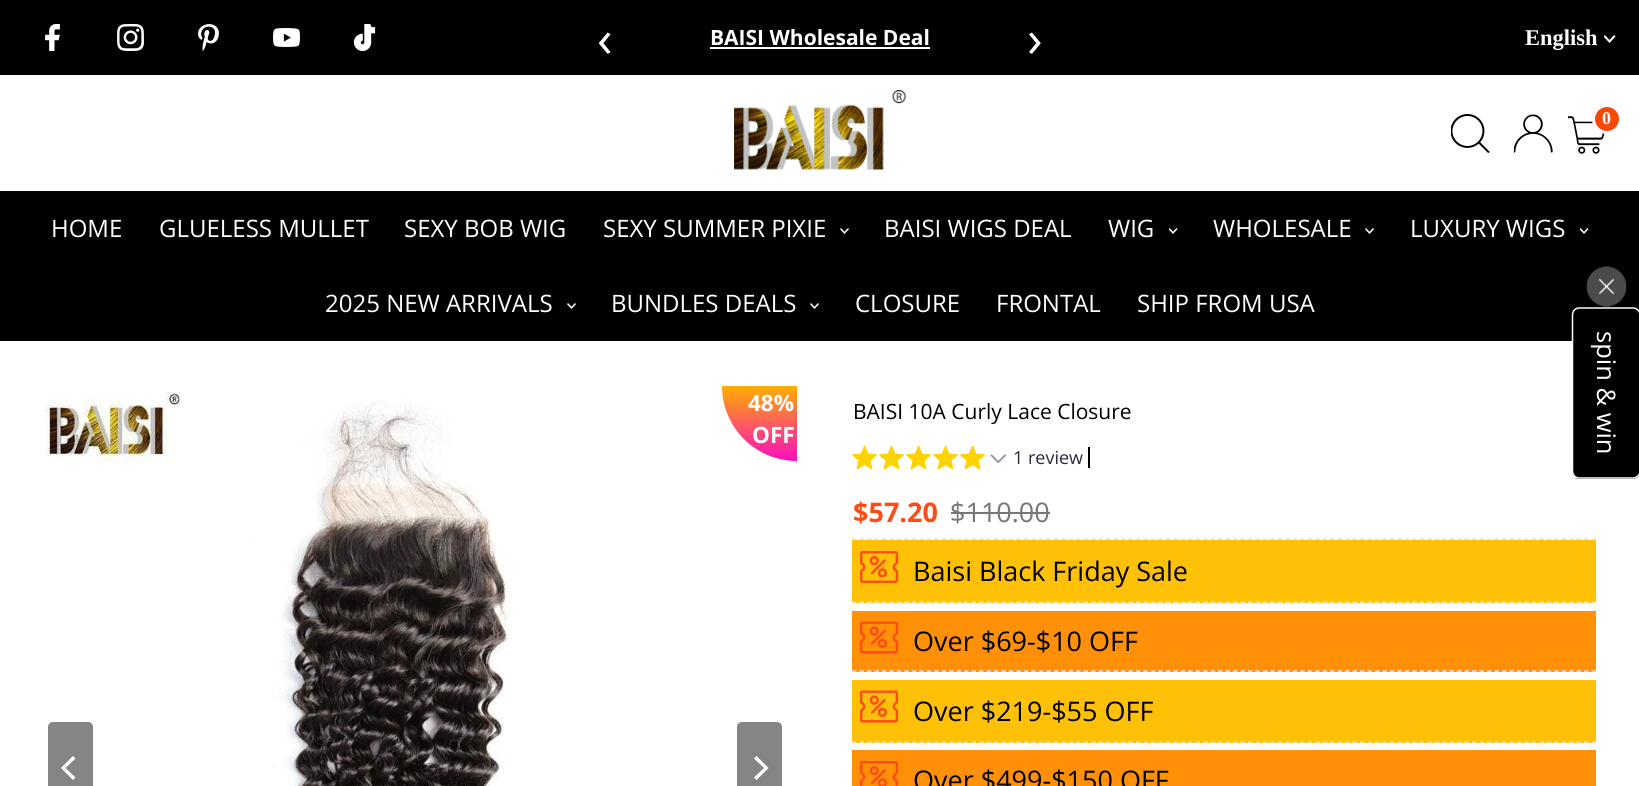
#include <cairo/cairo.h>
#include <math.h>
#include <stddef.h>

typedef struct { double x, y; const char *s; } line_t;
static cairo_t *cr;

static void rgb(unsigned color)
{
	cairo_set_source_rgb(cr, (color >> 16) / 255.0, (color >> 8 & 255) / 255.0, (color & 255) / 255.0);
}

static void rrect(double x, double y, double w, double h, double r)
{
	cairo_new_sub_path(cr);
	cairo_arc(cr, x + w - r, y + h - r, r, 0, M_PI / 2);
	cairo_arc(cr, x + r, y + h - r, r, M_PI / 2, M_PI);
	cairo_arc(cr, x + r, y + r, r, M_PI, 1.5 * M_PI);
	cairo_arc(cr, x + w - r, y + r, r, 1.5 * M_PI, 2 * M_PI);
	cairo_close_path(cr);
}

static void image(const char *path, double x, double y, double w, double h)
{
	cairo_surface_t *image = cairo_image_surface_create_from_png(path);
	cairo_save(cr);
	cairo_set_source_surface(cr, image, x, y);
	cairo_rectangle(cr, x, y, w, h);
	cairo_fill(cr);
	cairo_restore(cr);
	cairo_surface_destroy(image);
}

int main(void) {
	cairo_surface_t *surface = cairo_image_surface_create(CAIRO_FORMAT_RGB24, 1639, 786);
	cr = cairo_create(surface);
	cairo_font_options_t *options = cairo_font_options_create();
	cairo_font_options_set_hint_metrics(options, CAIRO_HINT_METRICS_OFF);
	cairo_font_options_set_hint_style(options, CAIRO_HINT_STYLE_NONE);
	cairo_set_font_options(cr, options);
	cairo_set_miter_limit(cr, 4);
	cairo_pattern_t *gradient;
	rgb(0xffffff);
	cairo_paint(cr);
	rgb(0x000000);
	cairo_rectangle(cr, 0, 0, 1639, 75);
	cairo_fill(cr);
	image("img/1.png", 45, 24, 15, 27);
	image("img/2.png", 117, 24, 27, 27);
	image("img/3.png", 198, 24, 21, 27);
	image("img/4.png", 273, 28, 27, 19);
	image("img/5.png", 353, 24, 23, 27);
	rgb(0xffffff);
	cairo_rectangle(cr, 710, 47, 220, 2);
	cairo_fill(cr);
	image("img/6.png", 1604, 35, 12, 8);
	image("img/7.png", 734, 90, 172, 80);
	image("img/8.png", 1451, 114, 39, 39);
	image("img/9.png", 1514, 114, 39, 39);
	image("img/10.png", 1568, 116, 37, 38);
	rgb(0xfb4606);
	cairo_arc(cr, 1607, 119, 13.5, 0, 2 * M_PI);
	cairo_fill_preserve(cr);
	rgb(0xffffff);
	cairo_set_line_width(cr, 3);
	cairo_stroke(cr);
	rgb(0x000000);
	cairo_rectangle(cr, 0, 191, 1639, 150);
	cairo_fill(cr);
	image("img/11.png", 840, 228, 9, 6);
	image("img/12.png", 1169, 228, 9, 6);
	image("img/11.png", 1365, 228, 9, 6);
	image("img/12.png", 1580, 228, 9, 6);
	image("img/11.png", 567, 303, 9, 6);
	image("img/11.png", 810, 303, 9, 6);
	image("img/13.png", 45, 392, 471, 394);
	rgb(0x858585);
	rrect(48, 722, 45, 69, 5);
	cairo_fill(cr);
	rgb(0xffffff);
	cairo_new_path(cr);
	cairo_move_to(cr, 61, 768);
	cairo_line_to(cr, 73, 780);
	cairo_line_to(cr, 75.5, 777.5);
	cairo_line_to(cr, 65.5, 768);
	cairo_line_to(cr, 75.5, 758.5);
	cairo_line_to(cr, 73, 756);
	cairo_close_path(cr);
	cairo_fill(cr);
	rgb(0x858585);
	rrect(737, 722, 45, 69, 5);
	cairo_fill(cr);
	rgb(0xffffff);
	cairo_new_path(cr);
	cairo_move_to(cr, 768.5, 768);
	cairo_line_to(cr, 756.5, 756);
	cairo_line_to(cr, 754, 758.5);
	cairo_line_to(cr, 764, 768);
	cairo_line_to(cr, 754, 777.5);
	cairo_line_to(cr, 756.5, 780);
	cairo_close_path(cr);
	cairo_fill(cr);
	gradient = cairo_pattern_create_linear(722, 386, 722, 461);
	cairo_pattern_add_color_stop_rgba(gradient, 0, 1, 0.682, 0, 1);
	cairo_pattern_add_color_stop_rgba(gradient, 1, 0.984, 0.055, 0.749, 1);
	cairo_set_source(cr, gradient);
	cairo_pattern_destroy(gradient);
	cairo_new_path(cr);
	cairo_move_to(cr, 722, 386);
	cairo_line_to(cr, 797, 386);
	cairo_line_to(cr, 797, 461);
	cairo_curve_to(cr, 755.5, 461, 722, 427.5, 722, 386);
	cairo_close_path(cr);
	cairo_fill(cr);
	image("img/14.png", 852, 445, 25, 25);
	image("img/14.png", 879, 445, 25, 25);
	image("img/14.png", 906, 445, 25, 25);
	image("img/14.png", 933, 445, 25, 25);
	image("img/14.png", 960, 445, 25, 25);
	image("img/15.png", 990, 454, 16, 10);
	rgb(0x000000);
	cairo_rectangle(cr, 1088, 447, 2, 21);
	cairo_fill(cr);
	rgb(0x777777);
	cairo_rectangle(cr, 951, 512, 99, 2);
	cairo_fill(cr);
	cairo_new_path(cr);
	cairo_move_to(cr, 852, 539);
	cairo_line_to(cr, 1596, 539);
	rgb(0xe1e1e1);
	cairo_set_line_width(cr, 1.5);
	cairo_set_dash(cr, (double[]){4.5, 2.97}, 2, 0);
	cairo_stroke(cr);
	rgb(0xffc107);
	cairo_rectangle(cr, 852, 540, 744, 63);
	cairo_fill(cr);
	cairo_new_path(cr);
	cairo_move_to(cr, 852, 602);
	cairo_line_to(cr, 1596, 602);
	rgb(0xe1e1e1);
	cairo_stroke(cr);
	image("img/16.png", 860, 551, 39, 32);
	rgb(0xff9007);
	cairo_rectangle(cr, 852, 611, 744, 61);
	cairo_fill(cr);
	cairo_new_path(cr);
	cairo_move_to(cr, 852, 671);
	cairo_line_to(cr, 1596, 671);
	rgb(0xe1e1e1);
	cairo_stroke(cr);
	image("img/17.png", 860, 621, 38, 33);
	rgb(0xffc107);
	cairo_rectangle(cr, 852, 680, 744, 63);
	cairo_fill(cr);
	cairo_new_path(cr);
	cairo_move_to(cr, 852, 742);
	cairo_line_to(cr, 1596, 742);
	rgb(0xe1e1e1);
	cairo_stroke(cr);
	image("img/18.png", 860, 690, 39, 33);
	rgb(0xff9007);
	cairo_rectangle(cr, 852, 750, 744, 36);
	cairo_fill(cr);
	image("img/19.png", 860, 761, 38, 25);
	image("img/20.png", 1586, 266, 41, 41);
	rgb(0x000000);
	cairo_new_path(cr);
	cairo_move_to(cr, 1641, 315);
	cairo_line_to(cr, 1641, 471);
	cairo_curve_to(cr, 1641, 475, 1637, 479, 1633, 479);
	cairo_line_to(cr, 1579, 479);
	cairo_curve_to(cr, 1575, 479, 1572, 475, 1572, 471);
	cairo_line_to(cr, 1572, 315);
	cairo_curve_to(cr, 1572, 311, 1575, 307, 1579, 307);
	cairo_line_to(cr, 1633, 307);
	cairo_curve_to(cr, 1637, 307, 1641, 311, 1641, 315);
	cairo_close_path(cr);
	cairo_fill(cr);
	cairo_new_path(cr);
	cairo_move_to(cr, 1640, 315);
	cairo_line_to(cr, 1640, 471);
	cairo_curve_to(cr, 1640, 475, 1636.5, 478, 1633, 478);
	cairo_line_to(cr, 1579, 478);
	cairo_curve_to(cr, 1575.5, 478, 1572.5, 475, 1572.5, 471);
	cairo_line_to(cr, 1572.5, 315);
	cairo_curve_to(cr, 1572.5, 311, 1575.5, 308, 1579, 308);
	cairo_line_to(cr, 1633, 308);
	cairo_curve_to(cr, 1636.5, 308, 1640, 311, 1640, 315);
	cairo_close_path(cr);
	rgb(0xffffff);
	cairo_set_dash(cr, NULL, 0, 0);
	cairo_stroke(cr);
	cairo_select_font_face(cr, "Open Sans", CAIRO_FONT_SLANT_NORMAL, CAIRO_FONT_WEIGHT_NORMAL);
	cairo_set_font_size(cr, 52);
	cairo_move_to(cr, 597, 57);
	cairo_show_text(cr, "‹");
	cairo_select_font_face(cr, "Open Sans", CAIRO_FONT_SLANT_NORMAL, CAIRO_FONT_WEIGHT_BOLD);
	cairo_set_font_size(cr, 21);
	cairo_move_to(cr, 710, 45);
	cairo_show_text(cr, "BAISI Wholesale Deal");
	cairo_select_font_face(cr, "Open Sans", CAIRO_FONT_SLANT_NORMAL, CAIRO_FONT_WEIGHT_NORMAL);
	cairo_set_font_size(cr, 52);
	cairo_move_to(cr, 1027, 57);
	cairo_show_text(cr, "›");
	cairo_select_font_face(cr, "Liberation Serif", CAIRO_FONT_SLANT_NORMAL, CAIRO_FONT_WEIGHT_BOLD);
	cairo_set_font_size(cr, 22.5);
	cairo_move_to(cr, 1525, 45);
	cairo_show_text(cr, "English");
	cairo_set_font_size(cr, 18);
	cairo_move_to(cr, 1602, 124);
	cairo_show_text(cr, "0");
	cairo_select_font_face(cr, "Open Sans", CAIRO_FONT_SLANT_NORMAL, CAIRO_FONT_WEIGHT_NORMAL);
	cairo_set_font_size(cr, 24);
	{
		static const line_t items[] = {
			{51, 237, "HOME"},
			{159, 237, "GLUELESS MULLET"},
			{404, 237, "SEXY BOB WIG"},
			{603, 237, "SEXY SUMMER PIXIE"},
			{884, 237, "BAISI WIGS DEAL"},
			{1108, 237, "WIG"},
			{1213, 237, "WHOLESALE"},
			{1410, 237, "LUXURY WIGS"},
			{325, 312, "2025 NEW ARRIVALS"},
			{611, 312, "BUNDLES DEALS"},
			{855, 312, "CLOSURE"},
			{996, 312, "FRONTAL"},
			{1137, 312, "SHIP FROM USA"},
		};
		for (size_t i = 0; i < sizeof items / sizeof *items; i++) {
			cairo_move_to(cr, items[i].x, items[i].y);
			cairo_show_text(cr, items[i].s);
		}
	}
	cairo_select_font_face(cr, "Open Sans", CAIRO_FONT_SLANT_NORMAL, CAIRO_FONT_WEIGHT_BOLD);
	cairo_set_font_size(cr, 22.5);
	cairo_move_to(cr, 748, 411);
	cairo_show_text(cr, "48%");
	cairo_move_to(cr, 752, 443);
	cairo_show_text(cr, "OFF");
	cairo_select_font_face(cr, "Open Sans", CAIRO_FONT_SLANT_NORMAL, CAIRO_FONT_WEIGHT_NORMAL);
	cairo_set_font_size(cr, 21);
	rgb(0x000000);
	cairo_move_to(cr, 853, 419);
	cairo_show_text(cr, "BAISI 10A Curly Lace Closure");
	cairo_set_font_size(cr, 18);
	rgb(0x28293d);
	cairo_move_to(cr, 1013, 464);
	cairo_show_text(cr, "1 review");
	cairo_select_font_face(cr, "Open Sans", CAIRO_FONT_SLANT_NORMAL, CAIRO_FONT_WEIGHT_BOLD);
	cairo_set_font_size(cr, 27);
	rgb(0xfd4d15);
	cairo_move_to(cr, 853, 522);
	cairo_show_text(cr, "$57.20");
	cairo_select_font_face(cr, "Open Sans", CAIRO_FONT_SLANT_NORMAL, CAIRO_FONT_WEIGHT_NORMAL);
	rgb(0x777777);
	cairo_move_to(cr, 950, 522);
	cairo_show_text(cr, "$110.00");
	rgb(0x000000);
	{
		static const line_t items[] = {
			{913, 581, "Baisi Black Friday Sale"},
			{913, 651, "Over $69-$10 OFF"},
			{913, 721, "Over $219-$55 OFF"},
			{913, 790, "Over $499-$150 OFF"},
		};
		for (size_t i = 0; i < sizeof items / sizeof *items; i++) {
			cairo_move_to(cr, items[i].x, items[i].y);
			cairo_show_text(cr, items[i].s);
		}
	}
	cairo_set_font_size(cr, 25.5);
	rgb(0xffffff);
	cairo_save(cr);
	cairo_translate(cr, 1597, 331);
	cairo_rotate(cr, 90 * M_PI / 180);
	cairo_move_to(cr, 0, 0);
	cairo_show_text(cr, "spin & win");
	cairo_restore(cr);
	cairo_surface_write_to_png(surface, "page.png");
	cairo_font_options_destroy(options);
	cairo_destroy(cr);
	cairo_surface_destroy(surface);
	return 0;
}
